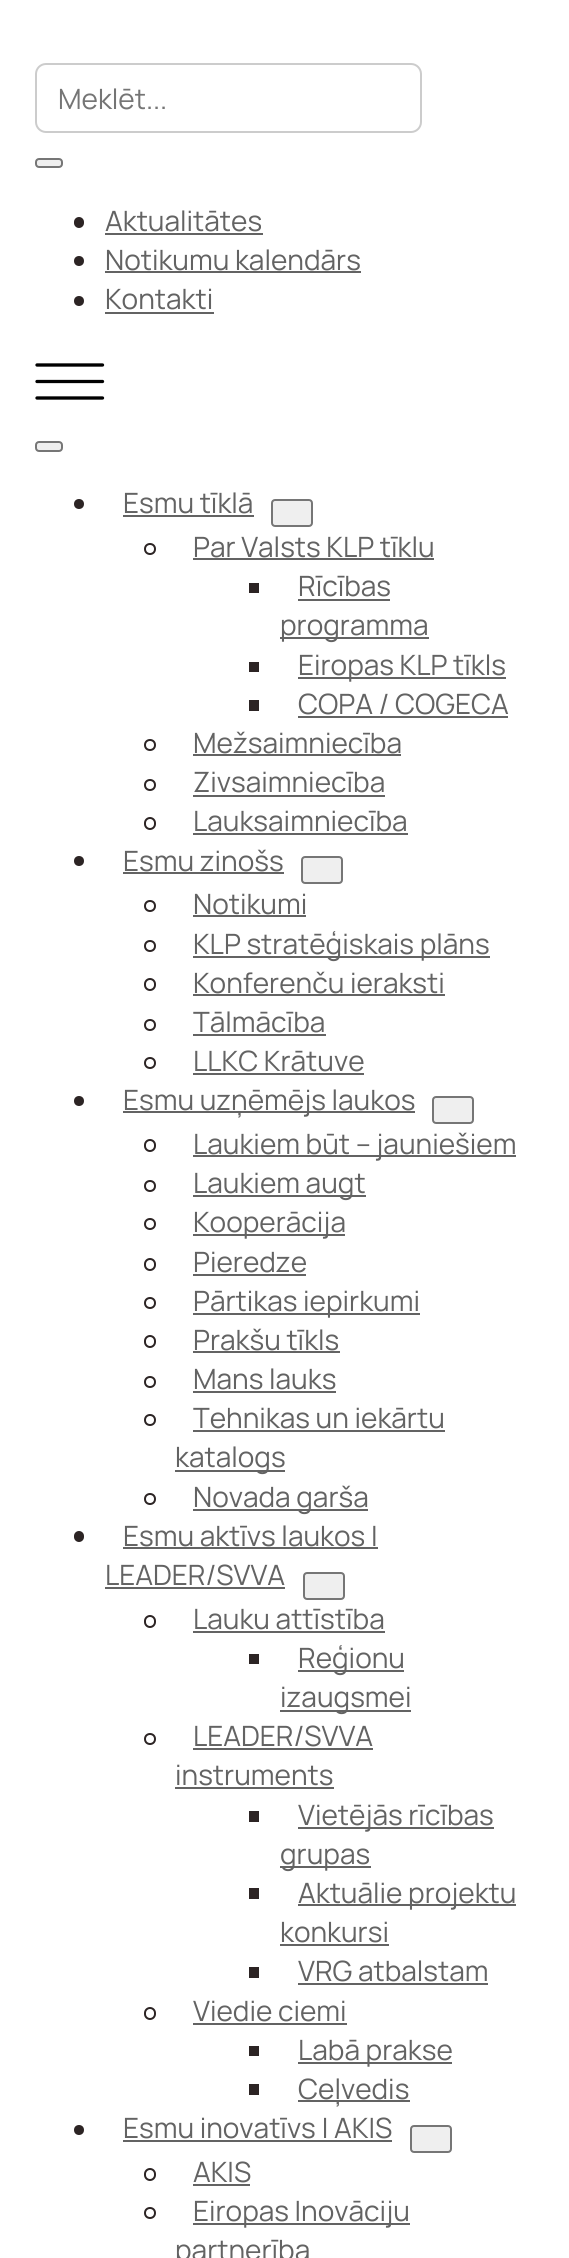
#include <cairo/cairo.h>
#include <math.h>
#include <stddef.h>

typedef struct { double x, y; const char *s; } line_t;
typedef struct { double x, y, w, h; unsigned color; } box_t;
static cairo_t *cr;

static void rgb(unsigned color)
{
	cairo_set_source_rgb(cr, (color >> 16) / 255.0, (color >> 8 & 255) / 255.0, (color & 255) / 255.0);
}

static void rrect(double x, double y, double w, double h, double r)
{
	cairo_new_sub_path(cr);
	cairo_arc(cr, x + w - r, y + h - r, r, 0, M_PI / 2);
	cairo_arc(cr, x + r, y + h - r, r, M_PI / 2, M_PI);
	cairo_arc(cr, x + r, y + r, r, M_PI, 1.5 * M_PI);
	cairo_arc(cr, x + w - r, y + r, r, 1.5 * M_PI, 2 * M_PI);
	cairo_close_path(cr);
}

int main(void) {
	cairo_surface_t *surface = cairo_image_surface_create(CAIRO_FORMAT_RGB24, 569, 2258);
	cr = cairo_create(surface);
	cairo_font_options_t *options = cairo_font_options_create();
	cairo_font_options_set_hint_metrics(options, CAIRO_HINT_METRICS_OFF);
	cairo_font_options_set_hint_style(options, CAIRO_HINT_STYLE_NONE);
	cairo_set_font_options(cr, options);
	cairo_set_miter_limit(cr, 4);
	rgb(0xffffff);
	cairo_paint(cr);
	rrect(36, 64, 385, 68, 10);
	rgb(0xcccccc);
	cairo_stroke(cr);
	rgb(0xefefef);
	rrect(36, 159, 26, 8, 3);
	cairo_fill_preserve(cr);
	rgb(0x767676);
	cairo_stroke(cr);
	rgb(0x2c2424);
	rrect(74, 217, 10, 11, 5);
	cairo_fill(cr);
	rgb(0x636363);
	cairo_rectangle(cr, 105, 233, 158, 2);
	cairo_fill(cr);
	rgb(0x2c2424);
	cairo_arc(cr, 79, 261, 5, 0, 2 * M_PI);
	cairo_fill(cr);
	rgb(0x636363);
	cairo_rectangle(cr, 105, 271, 256, 2);
	cairo_fill(cr);
	rgb(0x2c2424);
	cairo_arc(cr, 79, 301, 5, 0, 2 * M_PI);
	cairo_fill(cr);
	rgb(0x636363);
	cairo_rectangle(cr, 105, 312, 109, 2);
	cairo_fill(cr);
	cairo_new_path(cr);
	cairo_move_to(cr, 37, 365);
	cairo_line_to(cr, 102.5, 365);
	rgb(0x000000);
	cairo_set_line_width(cr, 3.3);
	cairo_set_line_cap(cr, CAIRO_LINE_CAP_ROUND);
	cairo_set_line_join(cr, CAIRO_LINE_JOIN_ROUND);
	cairo_stroke(cr);
	cairo_new_path(cr);
	cairo_move_to(cr, 37, 381.5);
	cairo_line_to(cr, 102.5, 381.5);
	cairo_stroke(cr);
	cairo_new_path(cr);
	cairo_move_to(cr, 37, 398);
	cairo_line_to(cr, 102.5, 398);
	cairo_stroke(cr);
	rgb(0xefefef);
	rrect(36, 442, 26, 9, 3);
	cairo_fill_preserve(cr);
	rgb(0x767676);
	cairo_set_line_width(cr, 2);
	cairo_set_line_cap(cr, CAIRO_LINE_CAP_BUTT);
	cairo_set_line_join(cr, CAIRO_LINE_JOIN_MITER);
	cairo_stroke(cr);
	rgb(0x2c2424);
	cairo_arc(cr, 79, 504, 5, 0, 2 * M_PI);
	cairo_fill(cr);
	rgb(0x636363);
	cairo_rectangle(cr, 123, 515, 131, 2);
	cairo_fill(cr);
	rgb(0xefefef);
	rrect(272, 500, 40, 26, 3);
	cairo_fill_preserve(cr);
	rgb(0x767676);
	cairo_stroke(cr);
	cairo_arc(cr, 150, 549, 5, 0, 2 * M_PI);
	rgb(0x2c2424);
	cairo_stroke(cr);
	{
		static const box_t items[] = {
			{193, 558, 241, 2, 0x636363},
			{249, 583, 10, 10, 0x2c2424},
			{298, 599, 92, 2, 0x636363},
			{280, 637, 149, 2, 0x636363},
			{249, 662, 10, 10, 0x2c2424},
			{298, 677, 208, 2, 0x636363},
			{249, 700, 10, 11, 0x2c2424},
			{298, 716, 210, 2, 0x636363},
		};
		for (size_t i = 0; i < sizeof items / sizeof *items; i++) {
			rgb(items[i].color);
			cairo_rectangle(cr, items[i].x, items[i].y, items[i].w, items[i].h);
			cairo_fill(cr);
		}
	}
	cairo_arc(cr, 150, 745, 5, 0, 2 * M_PI);
	rgb(0x2c2424);
	cairo_stroke(cr);
	rgb(0x636363);
	cairo_rectangle(cr, 193, 754, 208, 2);
	cairo_fill(cr);
	cairo_arc(cr, 150, 785, 5, 0, 2 * M_PI);
	rgb(0x2c2424);
	cairo_stroke(cr);
	rgb(0x636363);
	cairo_rectangle(cr, 193, 795, 192, 2);
	cairo_fill(cr);
	rrect(145, 818, 10, 11, 5);
	rgb(0x2c2424);
	cairo_stroke(cr);
	rgb(0x636363);
	cairo_rectangle(cr, 193, 833, 215, 2);
	cairo_fill(cr);
	rgb(0x2c2424);
	cairo_arc(cr, 79, 861, 5, 0, 2 * M_PI);
	cairo_fill(cr);
	rgb(0x636363);
	cairo_rectangle(cr, 123, 872, 161, 2);
	cairo_fill(cr);
	rgb(0xefefef);
	rrect(302, 857, 40, 26, 3);
	cairo_fill_preserve(cr);
	rgb(0x767676);
	cairo_stroke(cr);
	cairo_arc(cr, 150, 906, 5, 0, 2 * M_PI);
	rgb(0x2c2424);
	cairo_stroke(cr);
	rgb(0x636363);
	cairo_rectangle(cr, 193, 915, 113, 2);
	cairo_fill(cr);
	cairo_arc(cr, 150, 946, 5, 0, 2 * M_PI);
	rgb(0x2c2424);
	cairo_stroke(cr);
	rgb(0x636363);
	cairo_rectangle(cr, 193, 956, 297, 2);
	cairo_fill(cr);
	rrect(145, 979, 10, 11, 5);
	rgb(0x2c2424);
	cairo_stroke(cr);
	rgb(0x636363);
	cairo_rectangle(cr, 193, 994, 252, 2);
	cairo_fill(cr);
	cairo_arc(cr, 150, 1025, 5, 0, 2 * M_PI);
	rgb(0x2c2424);
	cairo_stroke(cr);
	rgb(0x636363);
	cairo_rectangle(cr, 193, 1034, 133, 2);
	cairo_fill(cr);
	cairo_arc(cr, 150, 1063, 5, 0, 2 * M_PI);
	rgb(0x2c2424);
	cairo_stroke(cr);
	rgb(0x636363);
	cairo_rectangle(cr, 193, 1073, 171, 2);
	cairo_fill(cr);
	rgb(0x2c2424);
	cairo_arc(cr, 79, 1101, 5, 0, 2 * M_PI);
	cairo_fill(cr);
	rgb(0x636363);
	cairo_rectangle(cr, 123, 1111, 292, 2);
	cairo_fill(cr);
	rgb(0xefefef);
	rrect(433, 1097, 40, 26, 3);
	cairo_fill_preserve(cr);
	rgb(0x767676);
	cairo_stroke(cr);
	rrect(145, 1140, 10, 11, 5);
	rgb(0x2c2424);
	cairo_stroke(cr);
	rgb(0x636363);
	cairo_rectangle(cr, 193, 1155, 323, 2);
	cairo_fill(cr);
	cairo_arc(cr, 150, 1186, 5, 0, 2 * M_PI);
	rgb(0x2c2424);
	cairo_stroke(cr);
	rgb(0x636363);
	cairo_rectangle(cr, 193, 1195, 173, 2);
	cairo_fill(cr);
	cairo_arc(cr, 150, 1224, 5, 0, 2 * M_PI);
	rgb(0x2c2424);
	cairo_stroke(cr);
	rgb(0x636363);
	cairo_rectangle(cr, 193, 1234, 152, 2);
	cairo_fill(cr);
	rrect(145, 1259, 10, 11, 5);
	rgb(0x2c2424);
	cairo_stroke(cr);
	rgb(0x636363);
	cairo_rectangle(cr, 193, 1274, 113, 2);
	cairo_fill(cr);
	cairo_arc(cr, 150, 1303, 5, 0, 2 * M_PI);
	rgb(0x2c2424);
	cairo_stroke(cr);
	rgb(0x636363);
	cairo_rectangle(cr, 193, 1313, 227, 2);
	cairo_fill(cr);
	rrect(145, 1336, 10, 11, 5);
	rgb(0x2c2424);
	cairo_stroke(cr);
	rgb(0x636363);
	cairo_rectangle(cr, 193, 1351, 147, 2);
	cairo_fill(cr);
	cairo_arc(cr, 150, 1382, 5, 0, 2 * M_PI);
	rgb(0x2c2424);
	cairo_stroke(cr);
	rgb(0x636363);
	cairo_rectangle(cr, 193, 1391, 143, 2);
	cairo_fill(cr);
	cairo_arc(cr, 150, 1420, 5, 0, 2 * M_PI);
	rgb(0x2c2424);
	cairo_stroke(cr);
	rgb(0x636363);
	cairo_rectangle(cr, 193, 1430, 252, 2);
	cairo_fill(cr);
	cairo_rectangle(cr, 175, 1470, 110, 2);
	cairo_fill(cr);
	cairo_arc(cr, 150, 1499, 5, 0, 2 * M_PI);
	rgb(0x2c2424);
	cairo_stroke(cr);
	rgb(0x636363);
	cairo_rectangle(cr, 193, 1509, 175, 2);
	cairo_fill(cr);
	rgb(0x2c2424);
	rrect(74, 1531, 10, 11, 5);
	cairo_fill(cr);
	rgb(0x636363);
	cairo_rectangle(cr, 123, 1547, 255, 2);
	cairo_fill(cr);
	cairo_rectangle(cr, 105, 1587, 180, 2);
	cairo_fill(cr);
	rgb(0xefefef);
	rrect(304, 1573, 40, 26, 3);
	cairo_fill_preserve(cr);
	rgb(0x767676);
	cairo_stroke(cr);
	rrect(145, 1616, 10, 11, 5);
	rgb(0x2c2424);
	cairo_stroke(cr);
	{
		static const box_t items[] = {
			{193, 1631, 192, 2, 0x636363},
			{249, 1654, 10, 10, 0x2c2424},
			{298, 1670, 106, 2, 0x636363},
			{280, 1710, 131, 2, 0x636363},
		};
		for (size_t i = 0; i < sizeof items / sizeof *items; i++) {
			rgb(items[i].color);
			cairo_rectangle(cr, items[i].x, items[i].y, items[i].w, items[i].h);
			cairo_fill(cr);
		}
	}
	cairo_arc(cr, 150, 1739, 5, 0, 2 * M_PI);
	rgb(0x2c2424);
	cairo_stroke(cr);
	{
		static const box_t items[] = {
			{193, 1748, 180, 2, 0x636363},
			{175, 1787, 159, 2, 0x636363},
			{249, 1811, 10, 11, 0x2c2424},
			{298, 1827, 196, 2, 0x636363},
			{280, 1866, 91, 2, 0x636363},
			{249, 1888, 10, 11, 0x2c2424},
			{298, 1904, 218, 2, 0x636363},
			{280, 1944, 109, 2, 0x636363},
			{249, 1967, 10, 11, 0x2c2424},
			{298, 1983, 190, 2, 0x636363},
		};
		for (size_t i = 0; i < sizeof items / sizeof *items; i++) {
			rgb(items[i].color);
			cairo_rectangle(cr, items[i].x, items[i].y, items[i].w, items[i].h);
			cairo_fill(cr);
		}
	}
	rrect(145, 2008, 10, 11, 5);
	rgb(0x2c2424);
	cairo_stroke(cr);
	{
		static const box_t items[] = {
			{193, 2023, 154, 2, 0x636363},
			{249, 2046, 10, 10, 0x2c2424},
			{298, 2062, 154, 2, 0x636363},
			{249, 2084, 10, 11, 0x2c2424},
			{298, 2100, 112, 2, 0x636363},
		};
		for (size_t i = 0; i < sizeof items / sizeof *items; i++) {
			rgb(items[i].color);
			cairo_rectangle(cr, items[i].x, items[i].y, items[i].w, items[i].h);
			cairo_fill(cr);
		}
	}
	rgb(0x2c2424);
	cairo_arc(cr, 79, 2130, 5, 0, 2 * M_PI);
	cairo_fill(cr);
	rgb(0x636363);
	cairo_rectangle(cr, 123, 2140, 269, 2);
	cairo_fill(cr);
	rgb(0xefefef);
	rrect(411, 2126, 40, 26, 3);
	cairo_fill_preserve(cr);
	rgb(0x767676);
	cairo_stroke(cr);
	rrect(145, 2169, 10, 11, 5);
	rgb(0x2c2424);
	cairo_stroke(cr);
	rgb(0x636363);
	cairo_rectangle(cr, 193, 2184, 57, 2);
	cairo_fill(cr);
	cairo_arc(cr, 150, 2213, 5, 0, 2 * M_PI);
	rgb(0x2c2424);
	cairo_stroke(cr);
	rgb(0x636363);
	cairo_rectangle(cr, 193, 2223, 217, 2);
	cairo_fill(cr);
	cairo_select_font_face(cr, "Manrope", CAIRO_FONT_SLANT_NORMAL, CAIRO_FONT_WEIGHT_NORMAL);
	cairo_set_font_size(cr, 28);
	rgb(0x757575);
	cairo_move_to(cr, 58, 109);
	cairo_show_text(cr, "Meklēt...");
	rgb(0x636363);
	{
		static const line_t items[] = {
			{105, 231, "Aktualitātes"},
			{105, 270, "Notikumu kalendārs"},
			{105, 309, "Kontakti"},
			{123, 513, "Esmu tīklā"},
			{193, 557, "Par Valsts KLP tīklu"},
			{298, 596, "Rīcības"},
			{280, 635, "programma"},
			{298, 675, "Eiropas KLP tīkls"},
			{298, 714, "COPA / COGECA"},
			{193, 753, "Mežsaimniecība"},
			{193, 792, "Zivsaimniecība"},
			{193, 831, "Lauksaimniecība"},
			{123, 871, "Esmu zinošs"},
			{193, 914, "Notikumi"},
			{193, 954, "KLP stratēģiskais plāns"},
			{193, 993, "Konferenču ieraksti"},
			{193, 1032, "Tālmācība"},
			{193, 1071, "LLKC Krātuve"},
			{123, 1110, "Esmu uzņēmējs laukos"},
			{193, 1154, "Laukiem būt – jauniešiem"},
			{193, 1193, "Laukiem augt"},
			{193, 1232, "Kooperācija"},
			{193, 1272, "Pieredze"},
			{193, 1311, "Pārtikas iepirkumi"},
			{193, 1350, "Prakšu tīkls"},
			{193, 1389, "Mans lauks"},
			{193, 1428, "Tehnikas un iekārtu"},
			{175, 1467, "katalogs"},
			{193, 1507, "Novada garša"},
			{123, 1546, "Esmu aktīvs laukos |"},
			{105, 1585, "LEADER/SVVA"},
			{193, 1629, "Lauku attīstība"},
			{298, 1668, "Reģionu"},
			{280, 1707, "izaugsmei"},
			{193, 1746, "LEADER/SVVA"},
			{175, 1785, "instruments"},
			{298, 1825, "Vietējās rīcības"},
			{280, 1864, "grupas"},
			{298, 1903, "Aktuālie projektu"},
			{280, 1942, "konkursi"},
			{298, 1981, "VRG atbalstam"},
			{193, 2021, "Viedie ciemi"},
			{298, 2060, "Labā prakse"},
			{298, 2099, "Ceļvedis"},
			{123, 2138, "Esmu inovatīvs | AKIS"},
			{193, 2182, "AKIS"},
			{193, 2221, "Eiropas Inovāciju"},
			{175, 2260, "partnerība"},
		};
		for (size_t i = 0; i < sizeof items / sizeof *items; i++) {
			cairo_move_to(cr, items[i].x, items[i].y);
			cairo_show_text(cr, items[i].s);
		}
	}
	cairo_surface_write_to_png(surface, "page.png");
	cairo_font_options_destroy(options);
	cairo_destroy(cr);
	cairo_surface_destroy(surface);
	return 0;
}
